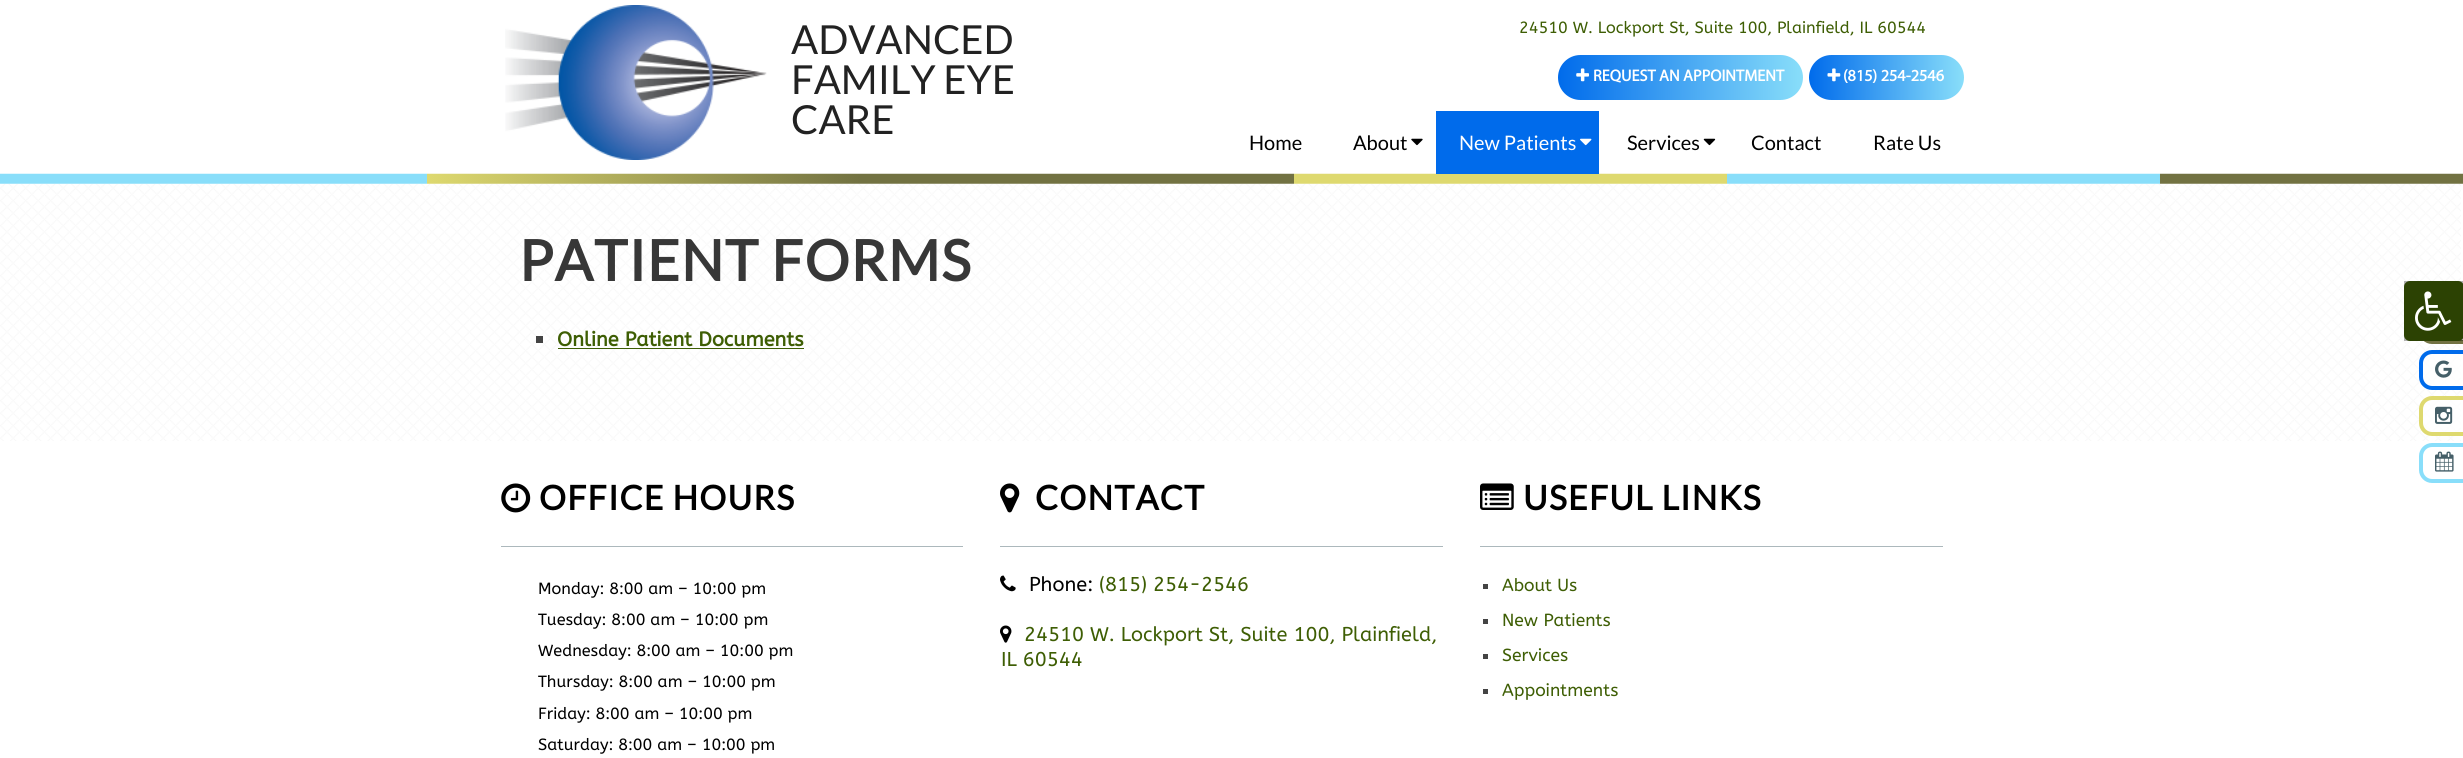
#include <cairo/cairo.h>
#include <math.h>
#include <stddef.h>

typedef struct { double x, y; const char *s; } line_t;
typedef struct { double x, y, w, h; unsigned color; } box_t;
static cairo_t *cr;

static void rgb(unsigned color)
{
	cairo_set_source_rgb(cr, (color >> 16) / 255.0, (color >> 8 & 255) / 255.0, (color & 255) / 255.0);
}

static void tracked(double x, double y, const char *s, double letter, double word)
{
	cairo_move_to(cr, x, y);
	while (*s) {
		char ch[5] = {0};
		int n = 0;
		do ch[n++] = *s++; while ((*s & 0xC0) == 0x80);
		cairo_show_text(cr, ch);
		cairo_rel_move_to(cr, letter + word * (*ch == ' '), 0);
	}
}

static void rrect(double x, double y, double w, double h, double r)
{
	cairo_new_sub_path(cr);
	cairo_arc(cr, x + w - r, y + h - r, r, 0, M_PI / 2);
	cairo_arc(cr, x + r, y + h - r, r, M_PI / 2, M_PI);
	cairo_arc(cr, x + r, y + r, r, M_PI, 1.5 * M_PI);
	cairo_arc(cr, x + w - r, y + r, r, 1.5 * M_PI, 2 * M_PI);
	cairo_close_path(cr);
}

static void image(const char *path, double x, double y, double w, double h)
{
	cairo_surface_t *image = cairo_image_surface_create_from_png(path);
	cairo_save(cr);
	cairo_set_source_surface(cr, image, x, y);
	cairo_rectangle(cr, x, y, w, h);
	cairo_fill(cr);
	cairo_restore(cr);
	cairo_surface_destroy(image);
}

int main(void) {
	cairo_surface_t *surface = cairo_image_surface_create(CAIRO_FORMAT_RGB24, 2463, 758);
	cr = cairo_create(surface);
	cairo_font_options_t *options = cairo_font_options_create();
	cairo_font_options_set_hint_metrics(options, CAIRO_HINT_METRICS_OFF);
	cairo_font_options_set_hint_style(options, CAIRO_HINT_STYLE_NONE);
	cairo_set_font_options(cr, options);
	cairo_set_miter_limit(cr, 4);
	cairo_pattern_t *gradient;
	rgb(0xffffff);
	cairo_paint(cr);
	image("img/1.png", 0, 184, 2461, 257);
	image("img/2.png", 505, 5, 262, 155);
	cairo_set_source_rgba(cr, 1, 1, 1, 0.7);
	cairo_new_path(cr);
	cairo_move_to(cr, 2432, 306);
	cairo_line_to(cr, 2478, 306);
	cairo_line_to(cr, 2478, 342);
	cairo_line_to(cr, 2432, 342);
	cairo_curve_to(cr, 2426, 342, 2421, 337, 2421, 331);
	cairo_line_to(cr, 2421, 317);
	cairo_curve_to(cr, 2421, 311, 2426, 306, 2432, 306);
	cairo_close_path(cr);
	cairo_fill_preserve(cr);
	rgb(0x727242);
	cairo_set_line_width(cr, 4);
	cairo_stroke(cr);
	cairo_set_source_rgba(cr, 1, 1, 1, 0.7);
	cairo_new_path(cr);
	cairo_move_to(cr, 2432, 352);
	cairo_line_to(cr, 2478, 352);
	cairo_line_to(cr, 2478, 388);
	cairo_line_to(cr, 2432, 388);
	cairo_curve_to(cr, 2426, 388, 2421, 383, 2421, 377);
	cairo_line_to(cr, 2421, 363);
	cairo_curve_to(cr, 2421, 357, 2426, 352, 2432, 352);
	cairo_close_path(cr);
	cairo_fill_preserve(cr);
	rgb(0x006beb);
	cairo_stroke(cr);
	image("img/3.png", 2435, 360, 17, 18);
	cairo_set_source_rgba(cr, 1, 1, 1, 0.7);
	cairo_new_path(cr);
	cairo_move_to(cr, 2432, 398);
	cairo_line_to(cr, 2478, 398);
	cairo_line_to(cr, 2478, 434);
	cairo_line_to(cr, 2432, 434);
	cairo_curve_to(cr, 2426, 434, 2421, 429, 2421, 423);
	cairo_line_to(cr, 2421, 409);
	cairo_curve_to(cr, 2421, 403, 2426, 398, 2432, 398);
	cairo_close_path(cr);
	cairo_fill_preserve(cr);
	rgb(0xded96f);
	cairo_stroke(cr);
	image("img/4.png", 2435, 406, 18, 18);
	cairo_new_path(cr);
	cairo_move_to(cr, 2432, 445);
	cairo_line_to(cr, 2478, 445);
	cairo_line_to(cr, 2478, 481);
	cairo_line_to(cr, 2432, 481);
	cairo_curve_to(cr, 2426, 481, 2421, 476, 2421, 470);
	cairo_line_to(cr, 2421, 456);
	cairo_curve_to(cr, 2421, 450, 2426, 445, 2432, 445);
	cairo_close_path(cr);
	rgb(0x89defa);
	cairo_stroke(cr);
	image("img/5.png", 2435, 451, 19, 21);
	gradient = cairo_pattern_create_linear(1558, 78, 1803, 77);
	cairo_pattern_add_color_stop_rgba(gradient, 0, 0, 0.42, 0.922, 1);
	cairo_pattern_add_color_stop_rgba(gradient, 1, 0.537, 0.871, 0.98, 1);
	cairo_set_source(cr, gradient);
	cairo_pattern_destroy(gradient);
	rrect(1558, 55, 245, 45, 22.5);
	cairo_fill(cr);
	image("img/6.png", 1576, 68, 13, 14);
	gradient = cairo_pattern_create_linear(1809, 78, 1964, 77);
	cairo_pattern_add_color_stop_rgba(gradient, 0, 0, 0.42, 0.922, 1);
	cairo_pattern_add_color_stop_rgba(gradient, 1, 0.537, 0.871, 0.98, 1);
	cairo_set_source(cr, gradient);
	cairo_pattern_destroy(gradient);
	rrect(1809, 55, 155, 45, 22.5);
	cairo_fill(cr);
	image("img/7.png", 1827, 68, 14, 14);
	image("img/8.png", 0, 173, 2463, 11);
	image("img/9.png", 1411, 138, 12, 8);
	rgb(0x006beb);
	cairo_rectangle(cr, 1436, 111, 163, 63);
	cairo_fill(cr);
	image("img/10.png", 1580, 138, 12, 8);
	image("img/11.png", 1703, 138, 13, 8);
	{
		static const box_t items[] = {
			{536, 336, 7, 7, 0x444444},
			{558, 348, 246, 1, 0x3e5e04},
			{501, 546, 462, 1, 0xacb8bc},
		};
		for (size_t i = 0; i < sizeof items / sizeof *items; i++) {
			rgb(items[i].color);
			cairo_rectangle(cr, items[i].x, items[i].y, items[i].w, items[i].h);
			cairo_fill(cr);
		}
	}
	image("img/12.png", 501, 483, 30, 30);
	cairo_rectangle(cr, 1000, 546, 443, 1);
	cairo_fill(cr);
	image("img/13.png", 1000, 483, 20, 30);
	image("img/14.png", 1000, 575, 16, 17);
	image("img/15.png", 1000, 625, 12, 18);
	cairo_rectangle(cr, 1480, 546, 463, 1);
	cairo_fill(cr);
	image("img/16.png", 1480, 483, 34, 27);
	{
		static const box_t items[] = {
			{1483, 584, 5, 5, 0x444444},
			{1483, 619, 5, 5, 0x444444},
			{1483, 654, 5, 5, 0x444444},
			{1483, 689, 5, 5, 0x444444},
		};
		for (size_t i = 0; i < sizeof items / sizeof *items; i++) {
			rgb(items[i].color);
			cairo_rectangle(cr, items[i].x, items[i].y, items[i].w, items[i].h);
			cairo_fill(cr);
		}
	}
	rgb(0x3e5e04);
	rrect(2404, 281, 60, 60, 6);
	cairo_fill(cr);
	cairo_set_source_rgba(cr, 0, 0, 0, 0.3);
	cairo_rectangle(cr, 2404, 281, 59, 60);
	cairo_fill(cr);
	image("img/17.png", 2415, 291, 37, 40);
	cairo_select_font_face(cr, "Lato", CAIRO_FONT_SLANT_NORMAL, CAIRO_FONT_WEIGHT_NORMAL);
	cairo_set_font_size(cr, 40);
	rgb(0x222222);
	{
		static const line_t items[] = {
			{791, 54, "ADVANCED"},
			{791, 94, "FAMILY EYE"},
			{791, 134, "CARE"},
		};
		for (size_t i = 0; i < sizeof items / sizeof *items; i++) {
			cairo_move_to(cr, items[i].x, items[i].y);
			cairo_show_text(cr, items[i].s);
		}
	}
	cairo_select_font_face(cr, "ABeeZee", CAIRO_FONT_SLANT_NORMAL, CAIRO_FONT_WEIGHT_NORMAL);
	cairo_set_font_size(cr, 16.25);
	rgb(0x3e5e04);
	cairo_move_to(cr, 1519, 33);
	cairo_show_text(cr, "24510 W. Lockport St, Suite 100, Plainfield, IL 60544");
	cairo_select_font_face(cr, "Myriad", CAIRO_FONT_SLANT_NORMAL, CAIRO_FONT_WEIGHT_BOLD);
	rgb(0xffffff);
	cairo_move_to(cr, 1593, 81);
	cairo_show_text(cr, "REQUEST AN APPOINTMENT");
	cairo_move_to(cr, 1843, 81);
	cairo_show_text(cr, "(815) 254-2546");
	cairo_select_font_face(cr, "Lato", CAIRO_FONT_SLANT_NORMAL, CAIRO_FONT_WEIGHT_NORMAL);
	cairo_set_font_size(cr, 20);
	rgb(0x000000);
	cairo_move_to(cr, 1249, 150);
	cairo_show_text(cr, "Home");
	cairo_move_to(cr, 1353, 150);
	cairo_show_text(cr, "About");
	rgb(0xffffff);
	cairo_move_to(cr, 1459, 150);
	cairo_show_text(cr, "New Patients");
	rgb(0x000000);
	{
		static const line_t items[] = {
			{1627, 150, "Services"},
			{1751, 150, "Contact"},
			{1873, 150, "Rate Us"},
		};
		for (size_t i = 0; i < sizeof items / sizeof *items; i++) {
			cairo_move_to(cr, items[i].x, items[i].y);
			cairo_show_text(cr, items[i].s);
		}
	}
	cairo_select_font_face(cr, "Lato", CAIRO_FONT_SLANT_NORMAL, CAIRO_FONT_WEIGHT_BOLD);
	cairo_set_font_size(cr, 56.25);
	rgb(0x373737);
	tracked(519, 281, "PATIENT FORMS", 1.25, 0);
	cairo_select_font_face(cr, "ABeeZee", CAIRO_FONT_SLANT_NORMAL, CAIRO_FONT_WEIGHT_BOLD);
	cairo_set_font_size(cr, 20);
	rgb(0x3e5e04);
	cairo_move_to(cr, 557, 346);
	cairo_show_text(cr, "Online Patient Documents");
	cairo_select_font_face(cr, "Lato", CAIRO_FONT_SLANT_NORMAL, CAIRO_FONT_WEIGHT_BOLD);
	cairo_set_font_size(cr, 33.75);
	rgb(0x000000);
	tracked(539, 510, "OFFICE HOURS", 1.25, 0);
	cairo_select_font_face(cr, "ABeeZee", CAIRO_FONT_SLANT_NORMAL, CAIRO_FONT_WEIGHT_NORMAL);
	cairo_set_font_size(cr, 16.25);
	{
		static const line_t items[] = {
			{538, 594, "Monday: 8:00 am – 10:00 pm"},
			{538, 625, "Tuesday: 8:00 am – 10:00 pm"},
			{538, 656, "Wednesday: 8:00 am – 10:00 pm"},
			{538, 687, "Thursday: 8:00 am – 10:00 pm"},
			{538, 719, "Friday: 8:00 am – 10:00 pm"},
			{538, 750, "Saturday: 8:00 am – 10:00 pm"},
		};
		for (size_t i = 0; i < sizeof items / sizeof *items; i++) {
			cairo_move_to(cr, items[i].x, items[i].y);
			cairo_show_text(cr, items[i].s);
		}
	}
	cairo_select_font_face(cr, "Lato", CAIRO_FONT_SLANT_NORMAL, CAIRO_FONT_WEIGHT_BOLD);
	cairo_set_font_size(cr, 33.75);
	tracked(1035, 510, "CONTACT", 1.25, 0);
	cairo_select_font_face(cr, "ABeeZee", CAIRO_FONT_SLANT_NORMAL, CAIRO_FONT_WEIGHT_NORMAL);
	cairo_set_font_size(cr, 20);
	cairo_move_to(cr, 1029, 591);
	cairo_show_text(cr, "Phone:");
	rgb(0x3e5e04);
	{
		static const line_t items[] = {
			{1099, 591, "(815) 254-2546"},
			{1024, 641, "24510 W. Lockport St, Suite 100, Plainfield,"},
			{1001, 666, "IL 60544"},
		};
		for (size_t i = 0; i < sizeof items / sizeof *items; i++) {
			cairo_move_to(cr, items[i].x, items[i].y);
			cairo_show_text(cr, items[i].s);
		}
	}
	cairo_select_font_face(cr, "Lato", CAIRO_FONT_SLANT_NORMAL, CAIRO_FONT_WEIGHT_BOLD);
	cairo_set_font_size(cr, 33.75);
	rgb(0x000000);
	tracked(1523, 510, "USEFUL LINKS", 1.25, 0);
	cairo_select_font_face(cr, "ABeeZee", CAIRO_FONT_SLANT_NORMAL, CAIRO_FONT_WEIGHT_NORMAL);
	cairo_set_font_size(cr, 17.5);
	rgb(0x3e5e04);
	{
		static const line_t items[] = {
			{1502, 591, "About Us"},
			{1502, 626, "New Patients"},
			{1502, 661, "Services"},
			{1502, 696, "Appointments"},
		};
		for (size_t i = 0; i < sizeof items / sizeof *items; i++) {
			cairo_move_to(cr, items[i].x, items[i].y);
			cairo_show_text(cr, items[i].s);
		}
	}
	cairo_surface_write_to_png(surface, "page.png");
	cairo_font_options_destroy(options);
	cairo_destroy(cr);
	cairo_surface_destroy(surface);
	return 0;
}
